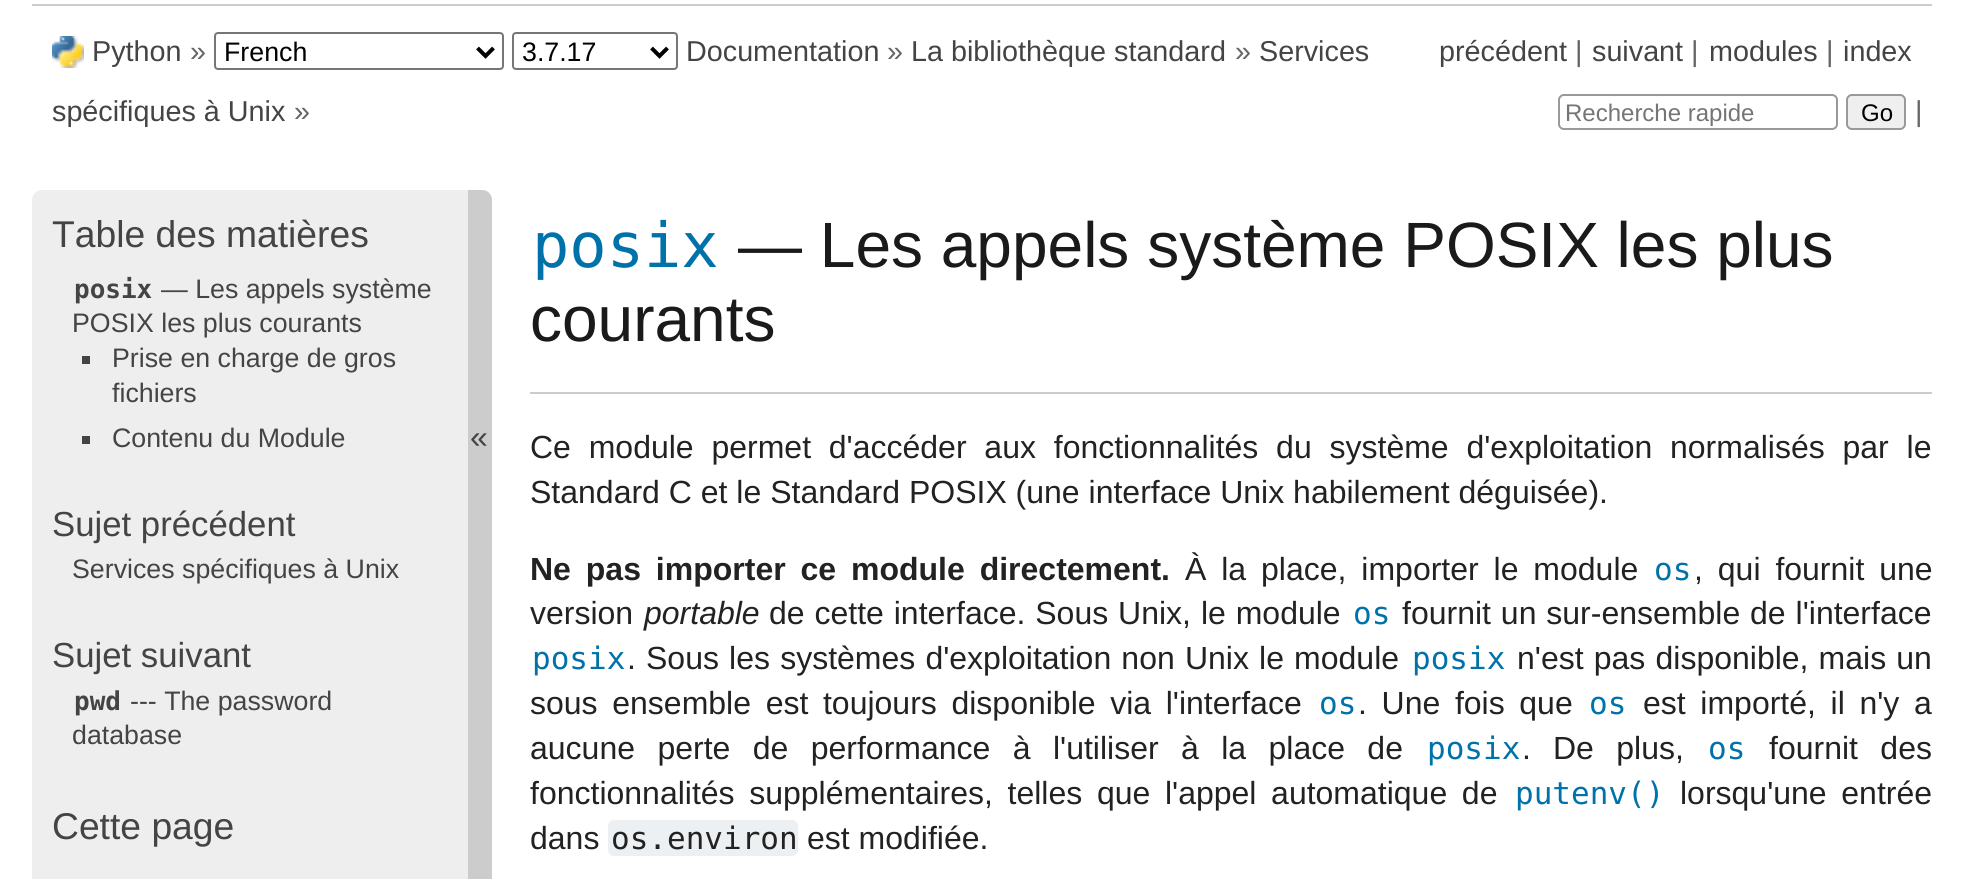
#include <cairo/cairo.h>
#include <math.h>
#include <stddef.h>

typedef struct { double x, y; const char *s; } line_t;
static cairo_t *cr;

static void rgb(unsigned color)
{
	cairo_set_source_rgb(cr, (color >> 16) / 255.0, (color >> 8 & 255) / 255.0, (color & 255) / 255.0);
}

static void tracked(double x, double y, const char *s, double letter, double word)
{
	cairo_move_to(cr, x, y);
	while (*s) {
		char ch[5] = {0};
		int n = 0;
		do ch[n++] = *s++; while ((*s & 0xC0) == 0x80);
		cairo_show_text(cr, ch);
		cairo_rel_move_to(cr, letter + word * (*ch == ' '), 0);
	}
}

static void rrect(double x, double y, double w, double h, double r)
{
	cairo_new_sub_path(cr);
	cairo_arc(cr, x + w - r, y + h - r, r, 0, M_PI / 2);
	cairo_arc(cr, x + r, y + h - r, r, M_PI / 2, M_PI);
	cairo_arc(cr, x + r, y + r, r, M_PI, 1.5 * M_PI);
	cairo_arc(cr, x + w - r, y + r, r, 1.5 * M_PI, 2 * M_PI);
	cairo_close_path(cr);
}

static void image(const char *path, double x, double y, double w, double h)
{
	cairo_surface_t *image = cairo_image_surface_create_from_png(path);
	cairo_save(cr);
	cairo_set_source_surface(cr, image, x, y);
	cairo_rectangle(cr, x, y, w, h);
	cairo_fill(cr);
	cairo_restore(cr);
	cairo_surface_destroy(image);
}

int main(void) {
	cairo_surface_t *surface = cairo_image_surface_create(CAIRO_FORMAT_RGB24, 1964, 879);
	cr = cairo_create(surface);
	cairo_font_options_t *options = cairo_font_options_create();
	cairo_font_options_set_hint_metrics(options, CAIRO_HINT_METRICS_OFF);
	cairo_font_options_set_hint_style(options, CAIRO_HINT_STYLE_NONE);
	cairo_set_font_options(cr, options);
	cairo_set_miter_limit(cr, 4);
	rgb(0xffffff);
	cairo_paint(cr);
	rgb(0xcccccc);
	cairo_rectangle(cr, 32, 4, 1900, 2);
	cairo_fill(cr);
	image("img/1.png", 52, 36, 32, 32);
	rrect(215, 33, 288, 36, 3);
	rgb(0x767676);
	cairo_stroke(cr);
	cairo_new_path(cr);
	cairo_move_to(cr, 477.5, 48);
	cairo_line_to(cr, 485.5, 56);
	cairo_line_to(cr, 493.5, 48);
	rgb(0x000000);
	cairo_set_line_width(cr, 4);
	cairo_stroke(cr);
	rrect(513, 33, 164, 36, 3);
	rgb(0x767676);
	cairo_set_line_width(cr, 2);
	cairo_stroke(cr);
	cairo_new_path(cr);
	cairo_move_to(cr, 651.5, 48);
	cairo_line_to(cr, 659.5, 56);
	cairo_line_to(cr, 667.5, 48);
	rgb(0x000000);
	cairo_set_line_width(cr, 4);
	cairo_stroke(cr);
	rrect(1559, 95, 278, 34, 5);
	rgb(0x999999);
	cairo_set_line_width(cr, 2);
	cairo_stroke(cr);
	rgb(0xefefef);
	rrect(1847, 95, 58, 34, 5);
	cairo_fill_preserve(cr);
	rgb(0x999999);
	cairo_stroke(cr);
	rgb(0xeeeeee);
	rrect(32, 190, 460, 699, 10);
	cairo_fill(cr);
	rgb(0x444444);
	cairo_rectangle(cr, 82, 356, 8, 8);
	cairo_fill(cr);
	cairo_rectangle(cr, 82, 436, 8, 8);
	cairo_fill(cr);
	rgb(0xcccccc);
	cairo_new_path(cr);
	cairo_move_to(cr, 468, 190);
	cairo_line_to(cr, 482, 190);
	cairo_curve_to(cr, 487.5, 190, 492, 194.5, 492, 200);
	cairo_line_to(cr, 492, 879);
	cairo_curve_to(cr, 492, 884.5, 487.5, 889, 482, 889);
	cairo_line_to(cr, 468, 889);
	cairo_close_path(cr);
	cairo_fill(cr);
	cairo_rectangle(cr, 530, 392, 1402, 2);
	cairo_fill(cr);
	rgb(0xecf0f3);
	rrect(608, 820, 190, 36, 6);
	cairo_fill(cr);
	cairo_select_font_face(cr, "Liberation Sans", CAIRO_FONT_SLANT_NORMAL, CAIRO_FONT_WEIGHT_NORMAL);
	cairo_set_font_size(cr, 28.75);
	rgb(0x444444);
	cairo_move_to(cr, 92, 61);
	cairo_show_text(cr, "Python");
	rgb(0x666666);
	cairo_move_to(cr, 190, 61);
	cairo_show_text(cr, "»");
	cairo_set_font_size(cr, 26.75);
	rgb(0x000000);
	cairo_move_to(cr, 224, 61);
	cairo_show_text(cr, "French");
	cairo_move_to(cr, 522, 61);
	cairo_show_text(cr, "3.7.17");
	cairo_set_font_size(cr, 28.75);
	rgb(0x444444);
	cairo_move_to(cr, 686, 61);
	cairo_show_text(cr, "Documentation");
	rgb(0x666666);
	cairo_move_to(cr, 887, 61);
	cairo_show_text(cr, "»");
	rgb(0x444444);
	cairo_move_to(cr, 911, 61);
	cairo_show_text(cr, "La bibliothèque standard");
	rgb(0x666666);
	cairo_move_to(cr, 1235, 61);
	cairo_show_text(cr, "»");
	rgb(0x444444);
	cairo_move_to(cr, 1259, 61);
	cairo_show_text(cr, "Services");
	cairo_move_to(cr, 1439, 61);
	cairo_show_text(cr, "précédent");
	rgb(0x666666);
	cairo_move_to(cr, 1575, 61);
	cairo_show_text(cr, "|");
	rgb(0x444444);
	cairo_move_to(cr, 1592, 61);
	cairo_show_text(cr, "suivant");
	rgb(0x666666);
	cairo_move_to(cr, 1691, 61);
	cairo_show_text(cr, "|");
	rgb(0x444444);
	cairo_move_to(cr, 1709, 61);
	cairo_show_text(cr, "modules");
	rgb(0x666666);
	cairo_move_to(cr, 1826, 61);
	cairo_show_text(cr, "|");
	rgb(0x444444);
	cairo_move_to(cr, 1843, 61);
	cairo_show_text(cr, "index");
	cairo_move_to(cr, 52, 121);
	cairo_show_text(cr, "spécifiques à Unix");
	rgb(0x666666);
	cairo_move_to(cr, 294, 121);
	cairo_show_text(cr, "»");
	cairo_set_font_size(cr, 24);
	rgb(0x757575);
	cairo_move_to(cr, 1565, 121);
	cairo_show_text(cr, "Recherche rapide");
	rgb(0x000000);
	cairo_move_to(cr, 1861, 121);
	cairo_show_text(cr, "Go");
	cairo_set_font_size(cr, 28.75);
	rgb(0x666666);
	cairo_move_to(cr, 1915, 121);
	cairo_show_text(cr, "|");
	cairo_set_font_size(cr, 37.25);
	rgb(0x444444);
	cairo_move_to(cr, 52, 247);
	cairo_show_text(cr, "Table des matières");
	cairo_select_font_face(cr, "DejaVu Sans Mono", CAIRO_FONT_SLANT_NORMAL, CAIRO_FONT_WEIGHT_BOLD);
	cairo_set_font_size(cr, 26);
	cairo_move_to(cr, 74, 298);
	cairo_show_text(cr, "posix");
	cairo_select_font_face(cr, "Liberation Sans", CAIRO_FONT_SLANT_NORMAL, CAIRO_FONT_WEIGHT_NORMAL);
	cairo_set_font_size(cr, 26.75);
	{
		static const line_t items[] = {
			{161, 298, "— Les appels système"},
			{72, 332, "POSIX les plus courants"},
			{112, 367, "Prise en charge de gros"},
			{112, 402, "fichiers"},
			{112, 447, "Contenu du Module"},
		};
		for (size_t i = 0; i < sizeof items / sizeof *items; i++) {
			cairo_move_to(cr, items[i].x, items[i].y);
			cairo_show_text(cr, items[i].s);
		}
	}
	cairo_set_font_size(cr, 34.75);
	cairo_move_to(cr, 52, 536);
	cairo_show_text(cr, "Sujet précédent");
	cairo_set_font_size(cr, 26.75);
	cairo_move_to(cr, 72, 578);
	cairo_show_text(cr, "Services spécifiques à Unix");
	cairo_set_font_size(cr, 34.75);
	cairo_move_to(cr, 52, 667);
	cairo_show_text(cr, "Sujet suivant");
	cairo_select_font_face(cr, "DejaVu Sans Mono", CAIRO_FONT_SLANT_NORMAL, CAIRO_FONT_WEIGHT_BOLD);
	cairo_set_font_size(cr, 26);
	cairo_move_to(cr, 74, 710);
	cairo_show_text(cr, "pwd");
	cairo_select_font_face(cr, "Liberation Sans", CAIRO_FONT_SLANT_NORMAL, CAIRO_FONT_WEIGHT_NORMAL);
	cairo_set_font_size(cr, 26.75);
	cairo_move_to(cr, 130, 710);
	cairo_show_text(cr, "--- The password");
	cairo_move_to(cr, 72, 744);
	cairo_show_text(cr, "database");
	cairo_set_font_size(cr, 37.25);
	cairo_move_to(cr, 52, 839);
	cairo_show_text(cr, "Cette page");
	cairo_set_font_size(cr, 32);
	cairo_move_to(cr, 470, 448);
	cairo_show_text(cr, "«");
	cairo_select_font_face(cr, "DejaVu Sans Mono", CAIRO_FONT_SLANT_NORMAL, CAIRO_FONT_WEIGHT_NORMAL);
	cairo_set_font_size(cr, 62);
	rgb(0x0072aa);
	cairo_move_to(cr, 532, 267);
	cairo_show_text(cr, "posix");
	cairo_select_font_face(cr, "Liberation Sans", CAIRO_FONT_SLANT_NORMAL, CAIRO_FONT_WEIGHT_NORMAL);
	cairo_set_font_size(cr, 64);
	rgb(0x1a1a1a);
	cairo_move_to(cr, 738, 267);
	cairo_show_text(cr, "— Les appels système POSIX les plus");
	cairo_move_to(cr, 530, 341);
	cairo_show_text(cr, "courants");
	cairo_set_font_size(cr, 32);
	rgb(0x222222);
	tracked(530, 458, "Ce module permet d'accéder aux fonctionnalités du système d'exploitation normalisés par le", 0, 8.9);
	cairo_move_to(cr, 530, 503);
	cairo_show_text(cr, "Standard C et le Standard POSIX (une interface Unix habilement déguisée).");
	cairo_select_font_face(cr, "Liberation Sans", CAIRO_FONT_SLANT_NORMAL, CAIRO_FONT_WEIGHT_BOLD);
	tracked(530, 580, "Ne pas importer ce module directement.", 0, 6);
	cairo_select_font_face(cr, "Liberation Sans", CAIRO_FONT_SLANT_NORMAL, CAIRO_FONT_WEIGHT_NORMAL);
	tracked(1185, 580, "À la place, importer le module", 0, 6);
	cairo_select_font_face(cr, "DejaVu Sans Mono", CAIRO_FONT_SLANT_NORMAL, CAIRO_FONT_WEIGHT_NORMAL);
	cairo_set_font_size(cr, 31);
	rgb(0x0072aa);
	cairo_move_to(cr, 1654, 580);
	cairo_show_text(cr, "os");
	cairo_select_font_face(cr, "Liberation Sans", CAIRO_FONT_SLANT_NORMAL, CAIRO_FONT_WEIGHT_NORMAL);
	cairo_set_font_size(cr, 32);
	rgb(0x222222);
	tracked(1694, 580, ", qui fournit une", 0, 6);
	cairo_move_to(cr, 530, 624);
	cairo_show_text(cr, "version");
	cairo_select_font_face(cr, "Liberation Sans", CAIRO_FONT_SLANT_ITALIC, CAIRO_FONT_WEIGHT_NORMAL);
	cairo_move_to(cr, 644, 624);
	cairo_show_text(cr, "portable");
	cairo_select_font_face(cr, "Liberation Sans", CAIRO_FONT_SLANT_NORMAL, CAIRO_FONT_WEIGHT_NORMAL);
	tracked(769, 624, "de cette interface. Sous Unix, le module", 0, 1);
	cairo_select_font_face(cr, "DejaVu Sans Mono", CAIRO_FONT_SLANT_NORMAL, CAIRO_FONT_WEIGHT_NORMAL);
	cairo_set_font_size(cr, 31);
	rgb(0x0072aa);
	cairo_move_to(cr, 1353, 624);
	cairo_show_text(cr, "os");
	cairo_select_font_face(cr, "Liberation Sans", CAIRO_FONT_SLANT_NORMAL, CAIRO_FONT_WEIGHT_NORMAL);
	cairo_set_font_size(cr, 32);
	rgb(0x222222);
	tracked(1402, 624, "fournit un sur-ensemble de l'interface", 0, 1);
	cairo_select_font_face(cr, "DejaVu Sans Mono", CAIRO_FONT_SLANT_NORMAL, CAIRO_FONT_WEIGHT_NORMAL);
	cairo_set_font_size(cr, 31);
	rgb(0x0072aa);
	cairo_move_to(cr, 532, 669);
	cairo_show_text(cr, "posix");
	cairo_select_font_face(cr, "Liberation Sans", CAIRO_FONT_SLANT_NORMAL, CAIRO_FONT_WEIGHT_NORMAL);
	cairo_set_font_size(cr, 32);
	rgb(0x222222);
	cairo_move_to(cr, 627, 669);
	cairo_show_text(cr, ".");
	tracked(646, 669, "Sous les systèmes d'exploitation non Unix le module", 0, 1.25);
	cairo_select_font_face(cr, "DejaVu Sans Mono", CAIRO_FONT_SLANT_NORMAL, CAIRO_FONT_WEIGHT_NORMAL);
	cairo_set_font_size(cr, 31);
	rgb(0x0072aa);
	cairo_move_to(cr, 1412, 669);
	cairo_show_text(cr, "posix");
	cairo_select_font_face(cr, "Liberation Sans", CAIRO_FONT_SLANT_NORMAL, CAIRO_FONT_WEIGHT_NORMAL);
	cairo_set_font_size(cr, 32);
	rgb(0x222222);
	tracked(1517, 669, "n'est pas disponible, mais un", 0, 1.25);
	tracked(530, 714, "sous ensemble est toujours disponible via l'interface", 0, 5.75);
	cairo_select_font_face(cr, "DejaVu Sans Mono", CAIRO_FONT_SLANT_NORMAL, CAIRO_FONT_WEIGHT_NORMAL);
	cairo_set_font_size(cr, 31);
	rgb(0x0072aa);
	cairo_move_to(cr, 1319, 714);
	cairo_show_text(cr, "os");
	cairo_select_font_face(cr, "Liberation Sans", CAIRO_FONT_SLANT_NORMAL, CAIRO_FONT_WEIGHT_NORMAL);
	cairo_set_font_size(cr, 32);
	rgb(0x222222);
	tracked(1358, 714, ". Une fois que", 0, 5.75);
	cairo_select_font_face(cr, "DejaVu Sans Mono", CAIRO_FONT_SLANT_NORMAL, CAIRO_FONT_WEIGHT_NORMAL);
	cairo_set_font_size(cr, 31);
	rgb(0x0072aa);
	cairo_move_to(cr, 1589, 714);
	cairo_show_text(cr, "os");
	cairo_select_font_face(cr, "Liberation Sans", CAIRO_FONT_SLANT_NORMAL, CAIRO_FONT_WEIGHT_NORMAL);
	cairo_set_font_size(cr, 32);
	rgb(0x222222);
	tracked(1643, 714, "est importé, il n'y a", 0, 5.75);
	tracked(530, 759, "aucune perte de performance à l'utiliser à la place de", 0, 13.5);
	cairo_select_font_face(cr, "DejaVu Sans Mono", CAIRO_FONT_SLANT_NORMAL, CAIRO_FONT_WEIGHT_NORMAL);
	cairo_set_font_size(cr, 31);
	rgb(0x0072aa);
	cairo_move_to(cr, 1427, 759);
	cairo_show_text(cr, "posix");
	cairo_select_font_face(cr, "Liberation Sans", CAIRO_FONT_SLANT_NORMAL, CAIRO_FONT_WEIGHT_NORMAL);
	cairo_set_font_size(cr, 32);
	rgb(0x222222);
	cairo_move_to(cr, 1522, 759);
	cairo_show_text(cr, ".");
	tracked(1553, 759, "De plus,", 0, 13.5);
	cairo_select_font_face(cr, "DejaVu Sans Mono", CAIRO_FONT_SLANT_NORMAL, CAIRO_FONT_WEIGHT_NORMAL);
	cairo_set_font_size(cr, 31);
	rgb(0x0072aa);
	cairo_move_to(cr, 1708, 759);
	cairo_show_text(cr, "os");
	cairo_select_font_face(cr, "Liberation Sans", CAIRO_FONT_SLANT_NORMAL, CAIRO_FONT_WEIGHT_NORMAL);
	cairo_set_font_size(cr, 32);
	rgb(0x222222);
	tracked(1769, 759, "fournit des", 0, 13.5);
	tracked(530, 804, "fonctionnalités supplémentaires, telles que l'appel automatique de", 0, 5.75);
	cairo_select_font_face(cr, "DejaVu Sans Mono", CAIRO_FONT_SLANT_NORMAL, CAIRO_FONT_WEIGHT_NORMAL);
	cairo_set_font_size(cr, 31);
	rgb(0x0072aa);
	cairo_move_to(cr, 1515, 804);
	cairo_show_text(cr, "putenv()");
	cairo_select_font_face(cr, "Liberation Sans", CAIRO_FONT_SLANT_NORMAL, CAIRO_FONT_WEIGHT_NORMAL);
	cairo_set_font_size(cr, 32);
	rgb(0x222222);
	tracked(1680, 804, "lorsqu'une entrée", 0, 5.75);
	cairo_move_to(cr, 530, 849);
	cairo_show_text(cr, "dans");
	cairo_select_font_face(cr, "DejaVu Sans Mono", CAIRO_FONT_SLANT_NORMAL, CAIRO_FONT_WEIGHT_NORMAL);
	cairo_set_font_size(cr, 31);
	cairo_move_to(cr, 611, 849);
	cairo_show_text(cr, "os.environ");
	cairo_select_font_face(cr, "Liberation Sans", CAIRO_FONT_SLANT_NORMAL, CAIRO_FONT_WEIGHT_NORMAL);
	cairo_set_font_size(cr, 32);
	cairo_move_to(cr, 807, 849);
	cairo_show_text(cr, "est modifiée.");
	cairo_surface_write_to_png(surface, "page.png");
	cairo_font_options_destroy(options);
	cairo_destroy(cr);
	cairo_surface_destroy(surface);
	return 0;
}
